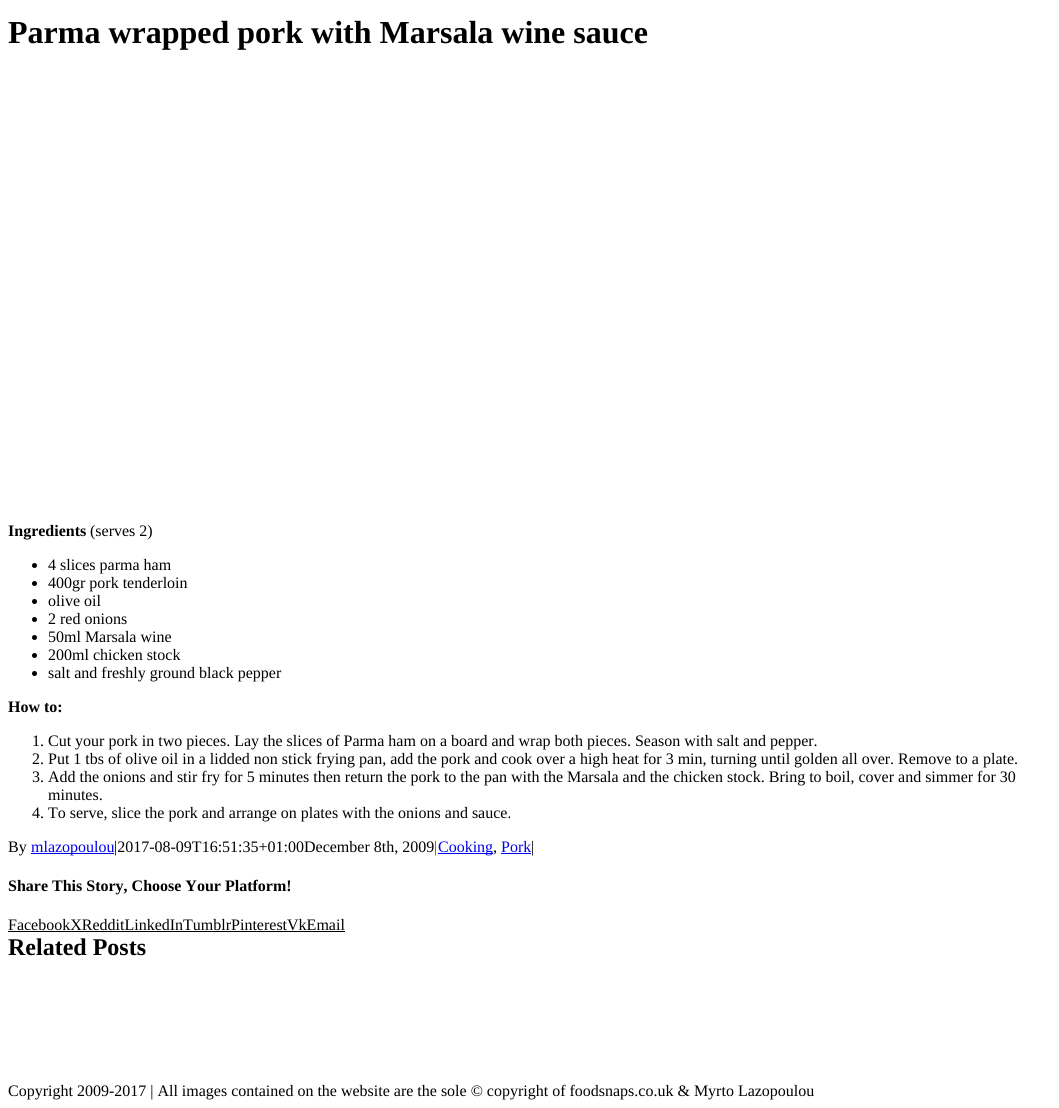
#include <cairo/cairo.h>
#include <math.h>
#include <stddef.h>

typedef struct { double x, y; const char *s; } line_t;
typedef struct { double x, y, w, h; unsigned color; } box_t;
static cairo_t *cr;

static void rgb(unsigned color)
{
	cairo_set_source_rgb(cr, (color >> 16) / 255.0, (color >> 8 & 255) / 255.0, (color & 255) / 255.0);
}

int main(void) {
	cairo_surface_t *surface = cairo_image_surface_create(CAIRO_FORMAT_RGB24, 1059, 1108);
	cr = cairo_create(surface);
	cairo_font_options_t *options = cairo_font_options_create();
	cairo_font_options_set_hint_metrics(options, CAIRO_HINT_METRICS_OFF);
	cairo_font_options_set_hint_style(options, CAIRO_HINT_STYLE_NONE);
	cairo_set_font_options(cr, options);
	cairo_set_miter_limit(cr, 4);
	rgb(0xffffff);
	cairo_paint(cr);
	rgb(0x000000);
	cairo_arc(cr, 34.5, 565.5, 2.5, 0, 2 * M_PI);
	cairo_fill(cr);
	cairo_arc(cr, 34.5, 583.5, 2.5, 0, 2 * M_PI);
	cairo_fill(cr);
	cairo_arc(cr, 34.5, 601.5, 2.5, 0, 2 * M_PI);
	cairo_fill(cr);
	cairo_arc(cr, 34.5, 619.5, 2.5, 0, 2 * M_PI);
	cairo_fill(cr);
	cairo_arc(cr, 34.5, 637.5, 2.5, 0, 2 * M_PI);
	cairo_fill(cr);
	cairo_arc(cr, 34.5, 655.5, 2.5, 0, 2 * M_PI);
	cairo_fill(cr);
	cairo_arc(cr, 34.5, 673.5, 2.5, 0, 2 * M_PI);
	cairo_fill(cr);
	{
		static const box_t items[] = {
			{31, 853, 83, 1, 0x0000ee},
			{438, 853, 55, 1, 0x0000ee},
			{501, 853, 30, 1, 0x0000ee},
			{8, 931, 337, 1, 0x000000},
		};
		for (size_t i = 0; i < sizeof items / sizeof *items; i++) {
			rgb(items[i].color);
			cairo_rectangle(cr, items[i].x, items[i].y, items[i].w, items[i].h);
			cairo_fill(cr);
		}
	}
	cairo_select_font_face(cr, "Liberation Serif", CAIRO_FONT_SLANT_NORMAL, CAIRO_FONT_WEIGHT_BOLD);
	cairo_set_font_size(cr, 32);
	cairo_move_to(cr, 8, 43);
	cairo_show_text(cr, "Parma wrapped pork with Marsala wine sauce");
	cairo_set_font_size(cr, 16);
	cairo_move_to(cr, 8, 536);
	cairo_show_text(cr, "Ingredients");
	cairo_select_font_face(cr, "Liberation Serif", CAIRO_FONT_SLANT_NORMAL, CAIRO_FONT_WEIGHT_NORMAL);
	{
		static const line_t items[] = {
			{90, 536, "(serves 2)"},
			{48, 570, "4 slices parma ham"},
			{48, 588, "400gr pork tenderloin"},
			{48, 606, "olive oil"},
			{48, 624, "2 red onions"},
			{48, 642, "50ml Marsala wine"},
			{48, 660, "200ml chicken stock"},
			{48, 678, "salt and freshly ground black pepper"},
		};
		for (size_t i = 0; i < sizeof items / sizeof *items; i++) {
			cairo_move_to(cr, items[i].x, items[i].y);
			cairo_show_text(cr, items[i].s);
		}
	}
	cairo_select_font_face(cr, "Liberation Serif", CAIRO_FONT_SLANT_NORMAL, CAIRO_FONT_WEIGHT_BOLD);
	cairo_move_to(cr, 8, 712);
	cairo_show_text(cr, "How to:");
	cairo_select_font_face(cr, "Liberation Serif", CAIRO_FONT_SLANT_NORMAL, CAIRO_FONT_WEIGHT_NORMAL);
	{
		static const line_t items[] = {
			{32, 746, "1. Cut your pork in two pieces. Lay the slices of Parma ham on a board and wrap both pieces. Season with salt and pepper."},
			{32, 764, "2. Put 1 tbs of olive oil in a lidded non stick frying pan, add the pork and cook over a high heat for 3 min, turning until golden all over. Remove to a plate."},
			{32, 782, "3. Add the onions and stir fry for 5 minutes then return the pork to the pan with the Marsala and the chicken stock. Bring to boil, cover and simmer for 30"},
			{48, 800, "minutes."},
			{32, 818, "4. To serve, slice the pork and arrange on plates with the onions and sauce."},
			{8, 852, "By"},
		};
		for (size_t i = 0; i < sizeof items / sizeof *items; i++) {
			cairo_move_to(cr, items[i].x, items[i].y);
			cairo_show_text(cr, items[i].s);
		}
	}
	rgb(0x0000ee);
	cairo_move_to(cr, 31, 852);
	cairo_show_text(cr, "mlazopoulou");
	rgb(0x000000);
	cairo_move_to(cr, 114, 852);
	cairo_show_text(cr, "|2017-08-09T16:51:35+01:00December 8th, 2009|");
	rgb(0x0000ee);
	cairo_move_to(cr, 438, 852);
	cairo_show_text(cr, "Cooking");
	rgb(0x000000);
	cairo_move_to(cr, 493, 852);
	cairo_show_text(cr, ",");
	rgb(0x0000ee);
	cairo_move_to(cr, 501, 852);
	cairo_show_text(cr, "Pork");
	rgb(0x000000);
	cairo_move_to(cr, 531, 852);
	cairo_show_text(cr, "|");
	cairo_select_font_face(cr, "Liberation Serif", CAIRO_FONT_SLANT_NORMAL, CAIRO_FONT_WEIGHT_BOLD);
	cairo_move_to(cr, 8, 891);
	cairo_show_text(cr, "Share This Story, Choose Your Platform!");
	cairo_select_font_face(cr, "Liberation Serif", CAIRO_FONT_SLANT_NORMAL, CAIRO_FONT_WEIGHT_NORMAL);
	cairo_move_to(cr, 8, 930);
	cairo_show_text(cr, "FacebookXRedditLinkedInTumblrPinterestVkEmail");
	cairo_select_font_face(cr, "Liberation Serif", CAIRO_FONT_SLANT_NORMAL, CAIRO_FONT_WEIGHT_BOLD);
	cairo_set_font_size(cr, 24);
	cairo_move_to(cr, 8, 955);
	cairo_show_text(cr, "Related Posts");
	cairo_select_font_face(cr, "Liberation Serif", CAIRO_FONT_SLANT_NORMAL, CAIRO_FONT_WEIGHT_NORMAL);
	cairo_set_font_size(cr, 16);
	cairo_move_to(cr, 8, 1096);
	cairo_show_text(cr, "Copyright 2009-2017 | All images contained on the website are the sole © copyright of foodsnaps.co.uk & Myrto Lazopoulou");
	cairo_surface_write_to_png(surface, "page.png");
	cairo_font_options_destroy(options);
	cairo_destroy(cr);
	cairo_surface_destroy(surface);
	return 0;
}
